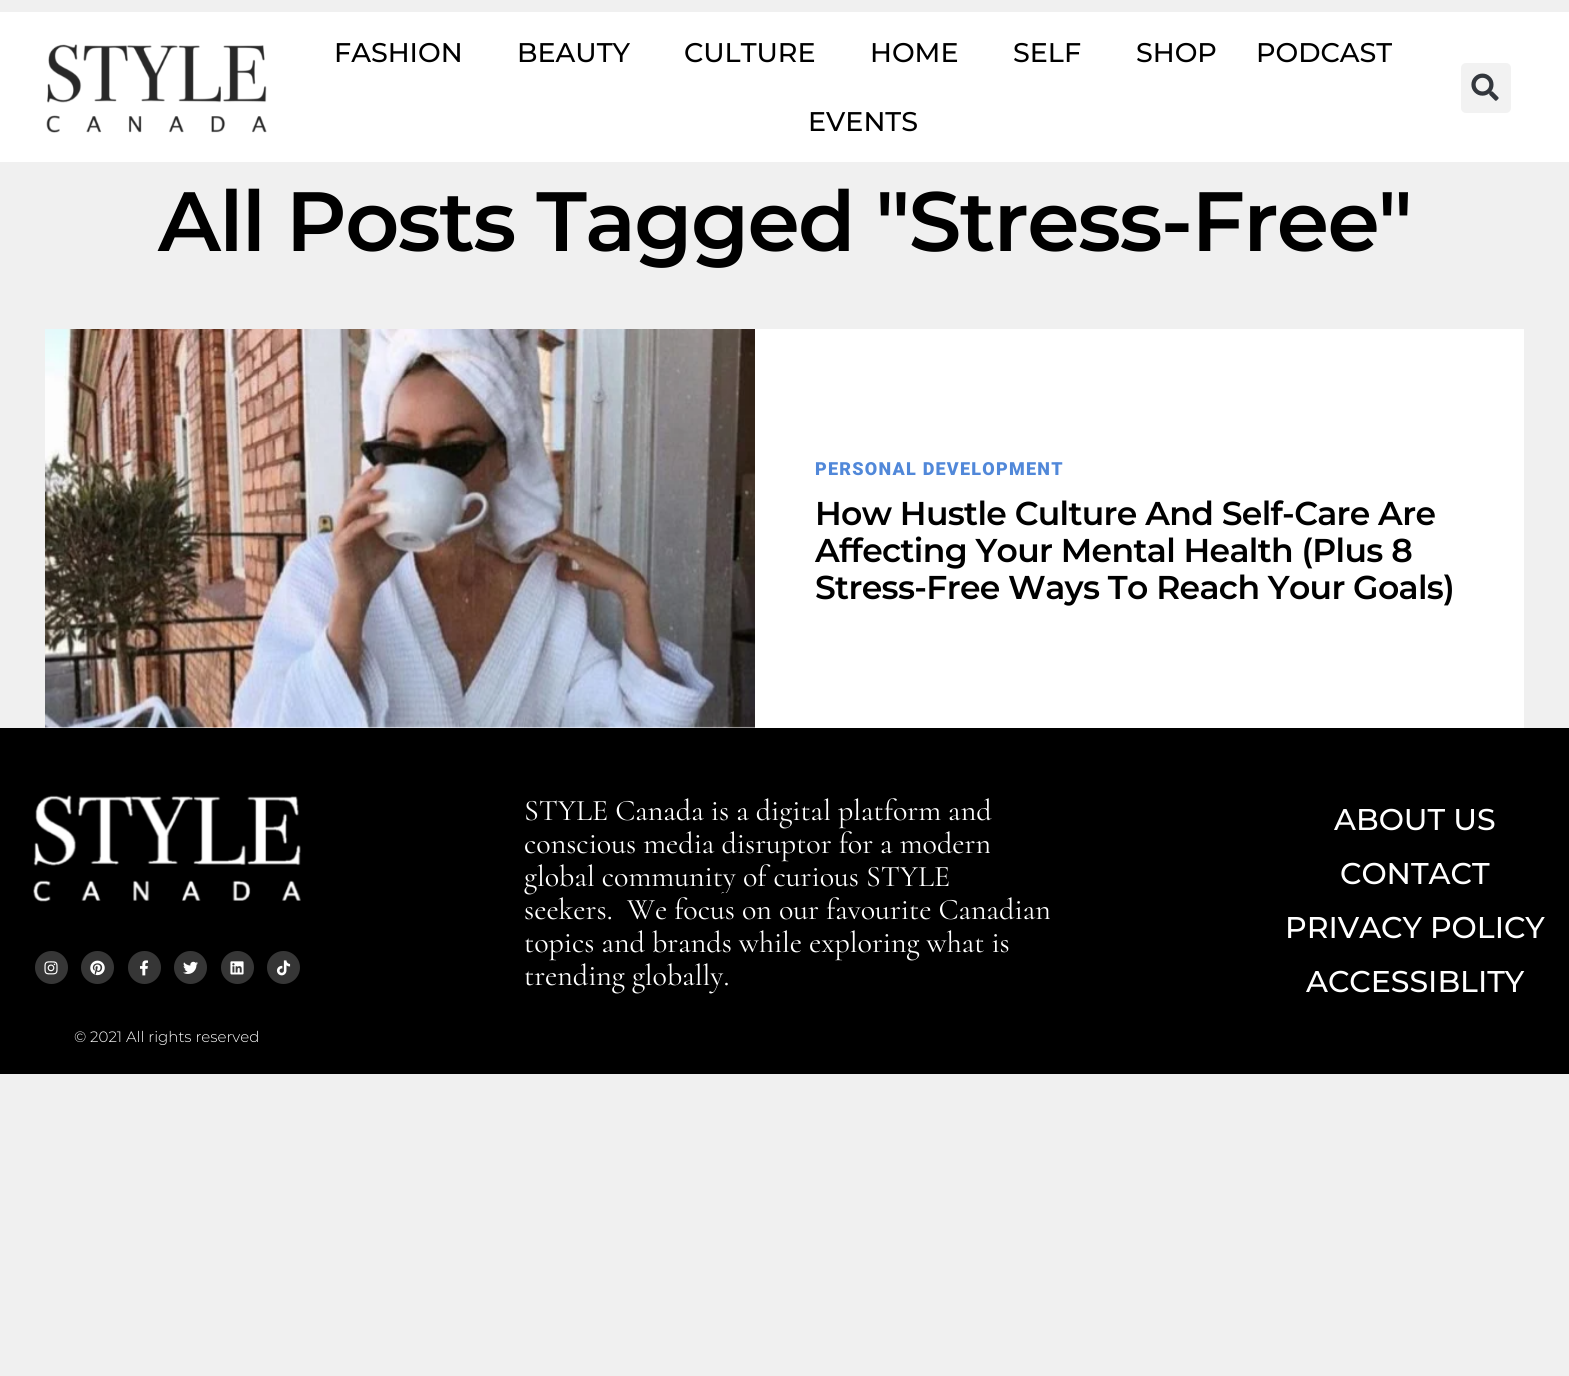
#include <cairo/cairo.h>
#include <math.h>
#include <stddef.h>

typedef struct { double x, y; const char *s; } line_t;
static cairo_t *cr;

static void rgb(unsigned color)
{
	cairo_set_source_rgb(cr, (color >> 16) / 255.0, (color >> 8 & 255) / 255.0, (color & 255) / 255.0);
}

static void tracked(double x, double y, const char *s, double letter, double word)
{
	cairo_move_to(cr, x, y);
	while (*s) {
		char ch[5] = {0};
		int n = 0;
		do ch[n++] = *s++; while ((*s & 0xC0) == 0x80);
		cairo_show_text(cr, ch);
		cairo_rel_move_to(cr, letter + word * (*ch == ' '), 0);
	}
}

static void rrect(double x, double y, double w, double h, double r)
{
	cairo_new_sub_path(cr);
	cairo_arc(cr, x + w - r, y + h - r, r, 0, M_PI / 2);
	cairo_arc(cr, x + r, y + h - r, r, M_PI / 2, M_PI);
	cairo_arc(cr, x + r, y + r, r, M_PI, 1.5 * M_PI);
	cairo_arc(cr, x + w - r, y + r, r, 1.5 * M_PI, 2 * M_PI);
	cairo_close_path(cr);
}

static void image(const char *path, double x, double y, double w, double h)
{
	cairo_surface_t *image = cairo_image_surface_create_from_png(path);
	cairo_save(cr);
	cairo_set_source_surface(cr, image, x, y);
	cairo_rectangle(cr, x, y, w, h);
	cairo_fill(cr);
	cairo_restore(cr);
	cairo_surface_destroy(image);
}

int main(void) {
	cairo_surface_t *surface = cairo_image_surface_create(CAIRO_FORMAT_RGB24, 1569, 1376);
	cr = cairo_create(surface);
	cairo_font_options_t *options = cairo_font_options_create();
	cairo_font_options_set_hint_metrics(options, CAIRO_HINT_METRICS_OFF);
	cairo_font_options_set_hint_style(options, CAIRO_HINT_STYLE_NONE);
	cairo_set_font_options(cr, options);
	cairo_set_miter_limit(cr, 4);
	rgb(0xf0f0f0);
	cairo_paint(cr);
	rgb(0xffffff);
	cairo_rectangle(cr, 0, 12, 1569, 150);
	cairo_fill(cr);
	image("img/1.png", 46, 44, 221, 89);
	rgb(0xf2f2f2);
	rrect(1461, 63, 50, 50, 5);
	cairo_fill(cr);
	image("img/2.png", 1471, 73, 28, 28);
	rgb(0xffffff);
	cairo_rectangle(cr, 45, 329, 1479, 399);
	cairo_fill(cr);
	image("img/3.png", 45, 329, 710, 399);
	rgb(0x000000);
	cairo_rectangle(cr, 0, 728, 1569, 346);
	cairo_fill(cr);
	image("img/4.png", 33, 795, 268, 107);
	rgb(0x363636);
	cairo_arc(cr, 51.5, 967.5, 16.5, 0, 2 * M_PI);
	cairo_fill(cr);
	image("img/5.png", 44, 961, 14, 14);
	cairo_arc(cr, 97.5, 967.5, 16.5, 0, 2 * M_PI);
	cairo_fill(cr);
	image("img/6.png", 90, 960, 15, 16);
	cairo_arc(cr, 144.5, 967.5, 16.5, 0, 2 * M_PI);
	cairo_fill(cr);
	image("img/7.png", 140, 960, 8, 16);
	cairo_arc(cr, 190.5, 967.5, 16.5, 0, 2 * M_PI);
	cairo_fill(cr);
	image("img/8.png", 183, 961, 15, 13);
	cairo_arc(cr, 237.5, 967.5, 16.5, 0, 2 * M_PI);
	cairo_fill(cr);
	image("img/9.png", 230, 961, 14, 14);
	cairo_arc(cr, 283.5, 967.5, 16.5, 0, 2 * M_PI);
	cairo_fill(cr);
	image("img/10.png", 276, 960, 15, 16);
	cairo_select_font_face(cr, "Montserrat Medium", CAIRO_FONT_SLANT_NORMAL, CAIRO_FONT_WEIGHT_NORMAL);
	cairo_set_font_size(cr, 27);
	rgb(0x000000);
	{
		static const line_t items[] = {
			{334, 62, "FASHION"},
			{517, 62, "BEAUTY"},
			{684, 62, "CULTURE"},
			{870, 62, "HOME"},
			{1013, 62, "SELF"},
			{1136, 62, "SHOP"},
			{1256, 62, "PODCAST"},
			{808, 131, "EVENTS"},
		};
		for (size_t i = 0; i < sizeof items / sizeof *items; i++) {
			cairo_move_to(cr, items[i].x, items[i].y);
			cairo_show_text(cr, items[i].s);
		}
	}
	cairo_select_font_face(cr, "Montserrat SemiBold", CAIRO_FONT_SLANT_NORMAL, CAIRO_FONT_WEIGHT_NORMAL);
	cairo_set_font_size(cr, 84);
	tracked(158, 251, "All Posts Tagged \"Stress-Free\"", -1.7, 0);
	cairo_select_font_face(cr, "Roboto Black", CAIRO_FONT_SLANT_NORMAL, CAIRO_FONT_WEIGHT_NORMAL);
	cairo_set_font_size(cr, 18);
	rgb(0x5188d9);
	tracked(815, 475, "PERSONAL DEVELOPMENT", 1.25, 0);
	cairo_select_font_face(cr, "Montserrat SemiBold", CAIRO_FONT_SLANT_NORMAL, CAIRO_FONT_WEIGHT_NORMAL);
	cairo_set_font_size(cr, 33);
	rgb(0x000000);
	{
		static const line_t items[] = {
			{815, 525, "How Hustle Culture And Self-Care Are"},
			{815, 562, "Affecting Your Mental Health (Plus 8"},
			{815, 599, "Stress-Free Ways To Reach Your Goals)"},
		};
		for (size_t i = 0; i < sizeof items / sizeof *items; i++) {
			tracked(items[i].x, items[i].y, items[i].s, -0.65, 0);
		}
	}
	cairo_select_font_face(cr, "Cormorant", CAIRO_FONT_SLANT_NORMAL, CAIRO_FONT_WEIGHT_NORMAL);
	cairo_set_font_size(cr, 30);
	rgb(0xffffff);
	{
		static const line_t items[] = {
			{524, 820, "STYLE Canada is a digital platform and"},
			{524, 853, "conscious media disruptor for a modern"},
			{524, 886, "global community of curious STYLE"},
			{524, 919, "seekers."},
			{627, 919, "We focus on our favourite Canadian"},
		};
		for (size_t i = 0; i < sizeof items / sizeof *items; i++) {
			cairo_move_to(cr, items[i].x, items[i].y);
			cairo_show_text(cr, items[i].s);
		}
	}
	rgb(0x000000);
	cairo_rectangle(cr, 722, 893, 5, 2);
	cairo_fill(cr);
	rgb(0xffffff);
	cairo_move_to(cr, 524, 952);
	cairo_show_text(cr, "topics and brands while exploring what is");
	cairo_move_to(cr, 524, 985);
	cairo_show_text(cr, "trending globally.");
	cairo_select_font_face(cr, "Montserrat Medium", CAIRO_FONT_SLANT_NORMAL, CAIRO_FONT_WEIGHT_NORMAL);
	{
		static const line_t items[] = {
			{1334, 830, "ABOUT US"},
			{1340, 884, "CONTACT"},
			{1285, 938, "PRIVACY POLICY"},
			{1306, 992, "ACCESSIBLITY"},
		};
		for (size_t i = 0; i < sizeof items / sizeof *items; i++) {
			cairo_move_to(cr, items[i].x, items[i].y);
			cairo_show_text(cr, items[i].s);
		}
	}
	cairo_select_font_face(cr, "Montserrat Light", CAIRO_FONT_SLANT_NORMAL, CAIRO_FONT_WEIGHT_NORMAL);
	cairo_set_font_size(cr, 15);
	cairo_move_to(cr, 74, 1042);
	cairo_show_text(cr, "© 2021 All rights reserved");
	cairo_surface_write_to_png(surface, "page.png");
	cairo_font_options_destroy(options);
	cairo_destroy(cr);
	cairo_surface_destroy(surface);
	return 0;
}
